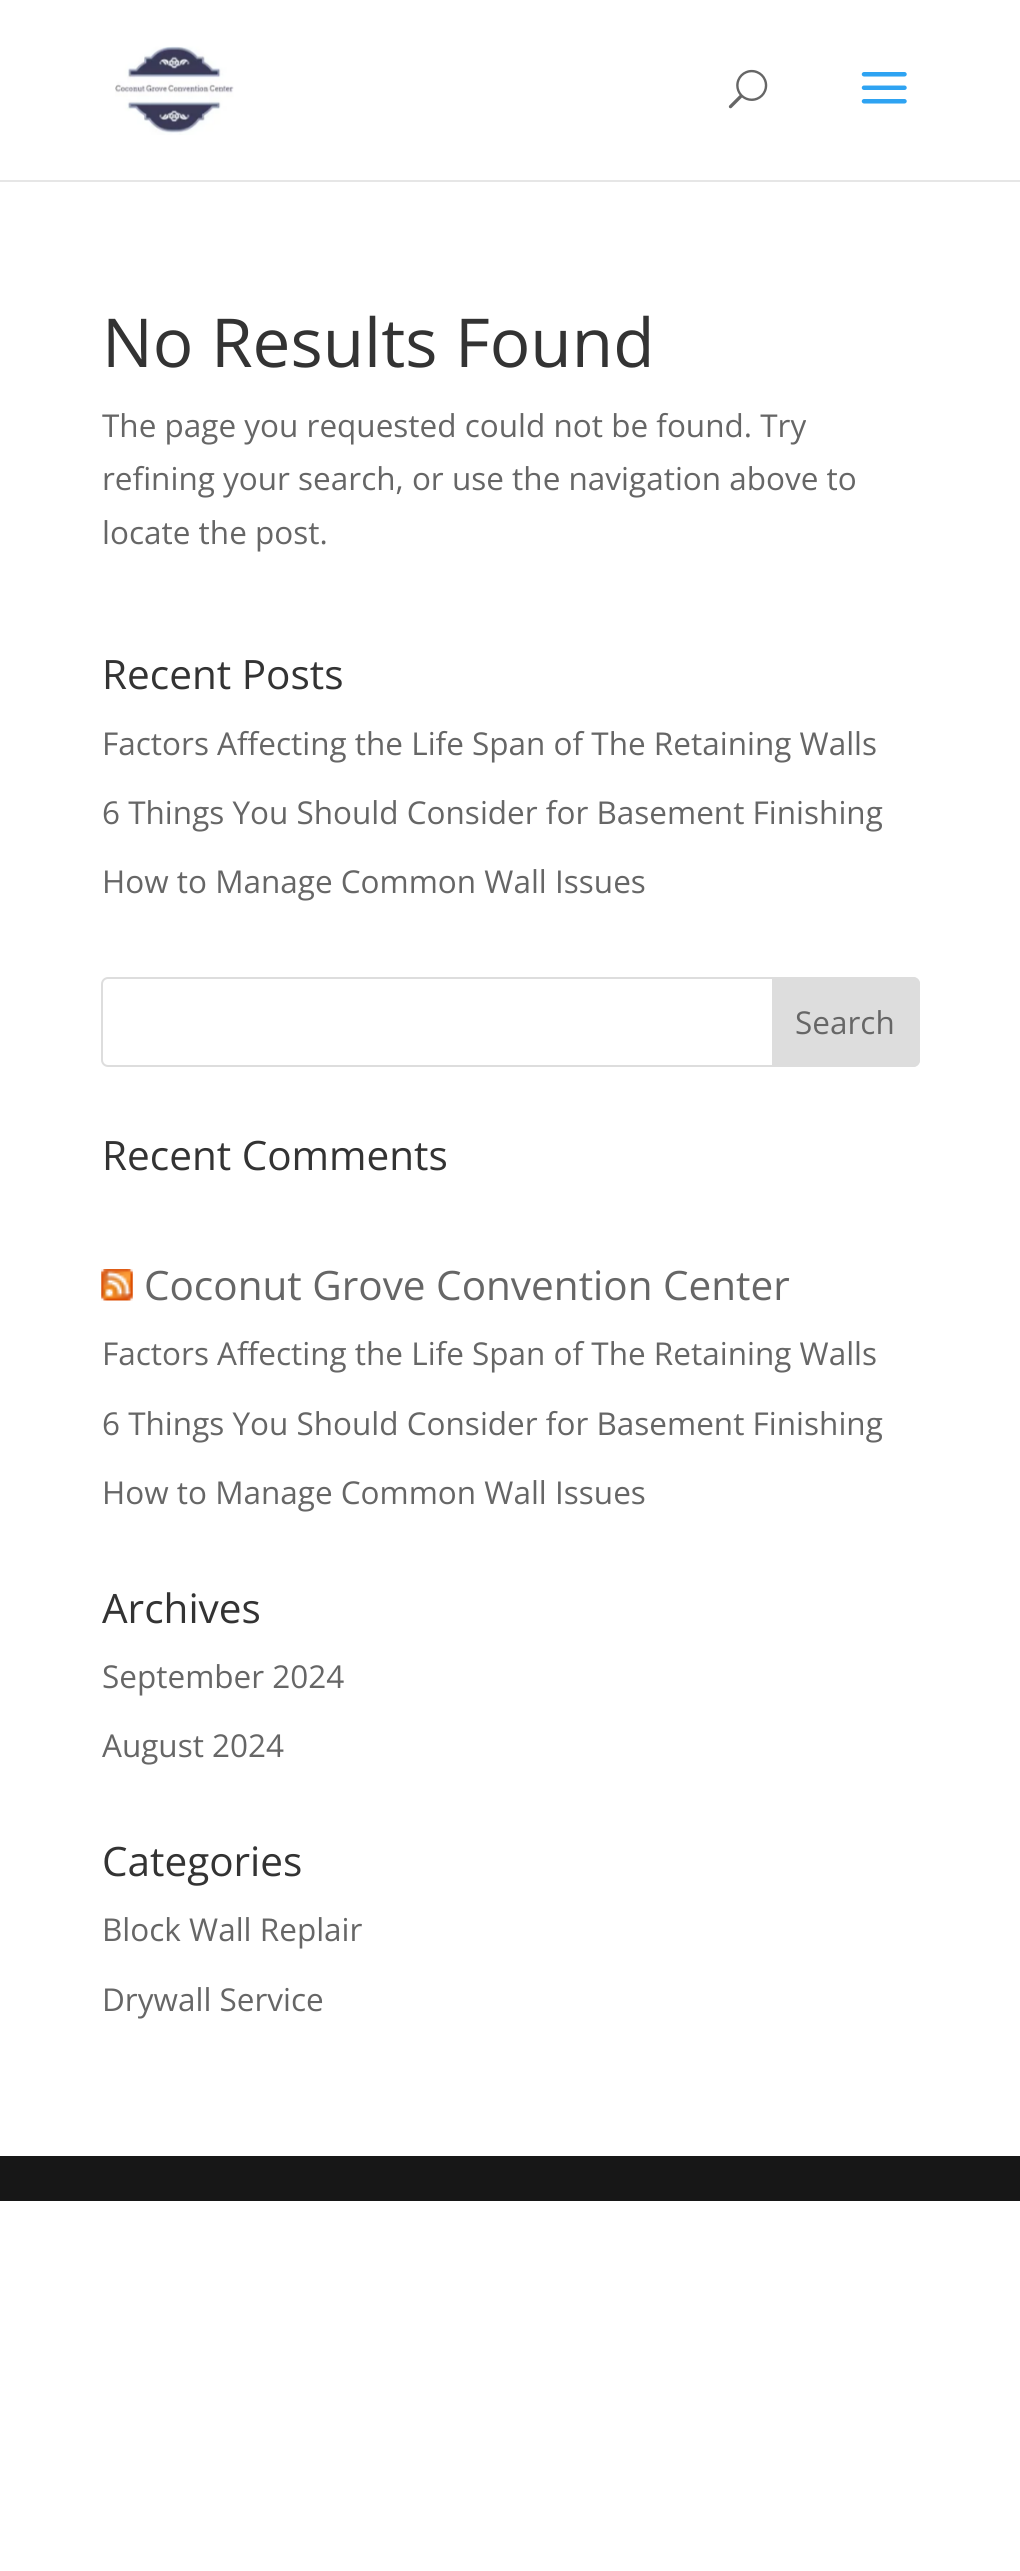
#include <cairo/cairo.h>
#include <math.h>
#include <stddef.h>

typedef struct { double x, y; const char *s; } line_t;
static cairo_t *cr;

static void rgb(unsigned color)
{
	cairo_set_source_rgb(cr, (color >> 16) / 255.0, (color >> 8 & 255) / 255.0, (color & 255) / 255.0);
}

static void rrect(double x, double y, double w, double h, double r)
{
	cairo_new_sub_path(cr);
	cairo_arc(cr, x + w - r, y + h - r, r, 0, M_PI / 2);
	cairo_arc(cr, x + r, y + h - r, r, M_PI / 2, M_PI);
	cairo_arc(cr, x + r, y + r, r, M_PI, 1.5 * M_PI);
	cairo_arc(cr, x + w - r, y + r, r, 1.5 * M_PI, 2 * M_PI);
	cairo_close_path(cr);
}

static void image(const char *path, double x, double y, double w, double h)
{
	cairo_surface_t *image = cairo_image_surface_create_from_png(path);
	cairo_save(cr);
	cairo_set_source_surface(cr, image, x, y);
	cairo_rectangle(cr, x, y, w, h);
	cairo_fill(cr);
	cairo_restore(cr);
	cairo_surface_destroy(image);
}

int main(void) {
	cairo_surface_t *surface = cairo_image_surface_create(CAIRO_FORMAT_RGB24, 1020, 2571);
	cr = cairo_create(surface);
	cairo_font_options_t *options = cairo_font_options_create();
	cairo_font_options_set_hint_metrics(options, CAIRO_HINT_METRICS_OFF);
	cairo_font_options_set_hint_style(options, CAIRO_HINT_STYLE_NONE);
	cairo_set_font_options(cr, options);
	cairo_set_miter_limit(cr, 4);
	rgb(0xffffff);
	cairo_paint(cr);
	rgb(0xe6e6e6);
	cairo_new_path(cr);
	cairo_move_to(cr, 0, 180);
	cairo_line_to(cr, 0, 182);
	cairo_line_to(cr, 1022, 182);
	cairo_line_to(cr, 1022, 2);
	cairo_line_to(cr, 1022, 180);
	cairo_close_path(cr);
	cairo_fill(cr);
	image("img/1.png", 115, 46, 119, 89);
	image("img/2.png", 728, 69, 40, 40);
	image("img/3.png", 861, 72, 46, 32);
	rrect(102, 978, 817, 88, 6);
	rgb(0xdddddd);
	cairo_stroke(cr);
	cairo_new_path(cr);
	cairo_move_to(cr, 773, 978);
	cairo_line_to(cr, 913, 978);
	cairo_curve_to(cr, 916.5, 978, 919, 980.5, 919, 984);
	cairo_line_to(cr, 919, 1060);
	cairo_curve_to(cr, 919, 1063.5, 916.5, 1066, 913, 1066);
	cairo_line_to(cr, 773, 1066);
	cairo_close_path(cr);
	cairo_fill_preserve(cr);
	cairo_stroke(cr);
	image("img/4.png", 101, 1269, 32, 32);
	rgb(0x171717);
	cairo_rectangle(cr, 0, 2156, 1020, 45);
	cairo_fill(cr);
	cairo_select_font_face(cr, "Open Sans", CAIRO_FONT_SLANT_NORMAL, CAIRO_FONT_WEIGHT_NORMAL);
	cairo_set_font_size(cr, 67.5);
	rgb(0x333333);
	cairo_move_to(cr, 102, 367);
	cairo_show_text(cr, "No Results Found");
	cairo_set_font_size(cr, 31.5);
	rgb(0x666666);
	{
		static const line_t items[] = {
			{102, 437, "The page you requested could not be found. Try"},
			{102, 490, "refining your search, or use the navigation above to"},
			{102, 544, "locate the post."},
		};
		for (size_t i = 0; i < sizeof items / sizeof *items; i++) {
			cairo_move_to(cr, items[i].x, items[i].y);
			cairo_show_text(cr, items[i].s);
		}
	}
	cairo_set_font_size(cr, 40.5);
	rgb(0x333333);
	cairo_move_to(cr, 102, 689);
	cairo_show_text(cr, "Recent Posts");
	cairo_set_font_size(cr, 31.5);
	rgb(0x666666);
	{
		static const line_t items[] = {
			{102, 755, "Factors Affecting the Life Span of The Retaining Walls"},
			{102, 824, "6 Things You Should Consider for Basement Finishing"},
			{102, 893, "How to Manage Common Wall Issues"},
			{795, 1034, "Search"},
		};
		for (size_t i = 0; i < sizeof items / sizeof *items; i++) {
			cairo_move_to(cr, items[i].x, items[i].y);
			cairo_show_text(cr, items[i].s);
		}
	}
	cairo_set_font_size(cr, 40.5);
	rgb(0x333333);
	cairo_move_to(cr, 102, 1170);
	cairo_show_text(cr, "Recent Comments");
	rgb(0x666666);
	cairo_move_to(cr, 144, 1300);
	cairo_show_text(cr, "Coconut Grove Convention Center");
	cairo_set_font_size(cr, 31.5);
	{
		static const line_t items[] = {
			{102, 1365, "Factors Affecting the Life Span of The Retaining Walls"},
			{102, 1435, "6 Things You Should Consider for Basement Finishing"},
			{102, 1504, "How to Manage Common Wall Issues"},
		};
		for (size_t i = 0; i < sizeof items / sizeof *items; i++) {
			cairo_move_to(cr, items[i].x, items[i].y);
			cairo_show_text(cr, items[i].s);
		}
	}
	cairo_set_font_size(cr, 40.5);
	rgb(0x333333);
	cairo_move_to(cr, 102, 1623);
	cairo_show_text(cr, "Archives");
	cairo_set_font_size(cr, 31.5);
	rgb(0x666666);
	cairo_move_to(cr, 102, 1688);
	cairo_show_text(cr, "September 2024");
	cairo_move_to(cr, 102, 1757);
	cairo_show_text(cr, "August 2024");
	cairo_set_font_size(cr, 40.5);
	rgb(0x333333);
	cairo_move_to(cr, 102, 1876);
	cairo_show_text(cr, "Categories");
	cairo_set_font_size(cr, 31.5);
	rgb(0x666666);
	cairo_move_to(cr, 102, 1941);
	cairo_show_text(cr, "Block Wall Replair");
	cairo_move_to(cr, 102, 2011);
	cairo_show_text(cr, "Drywall Service");
	cairo_surface_write_to_png(surface, "page.png");
	cairo_font_options_destroy(options);
	cairo_destroy(cr);
	cairo_surface_destroy(surface);
	return 0;
}
